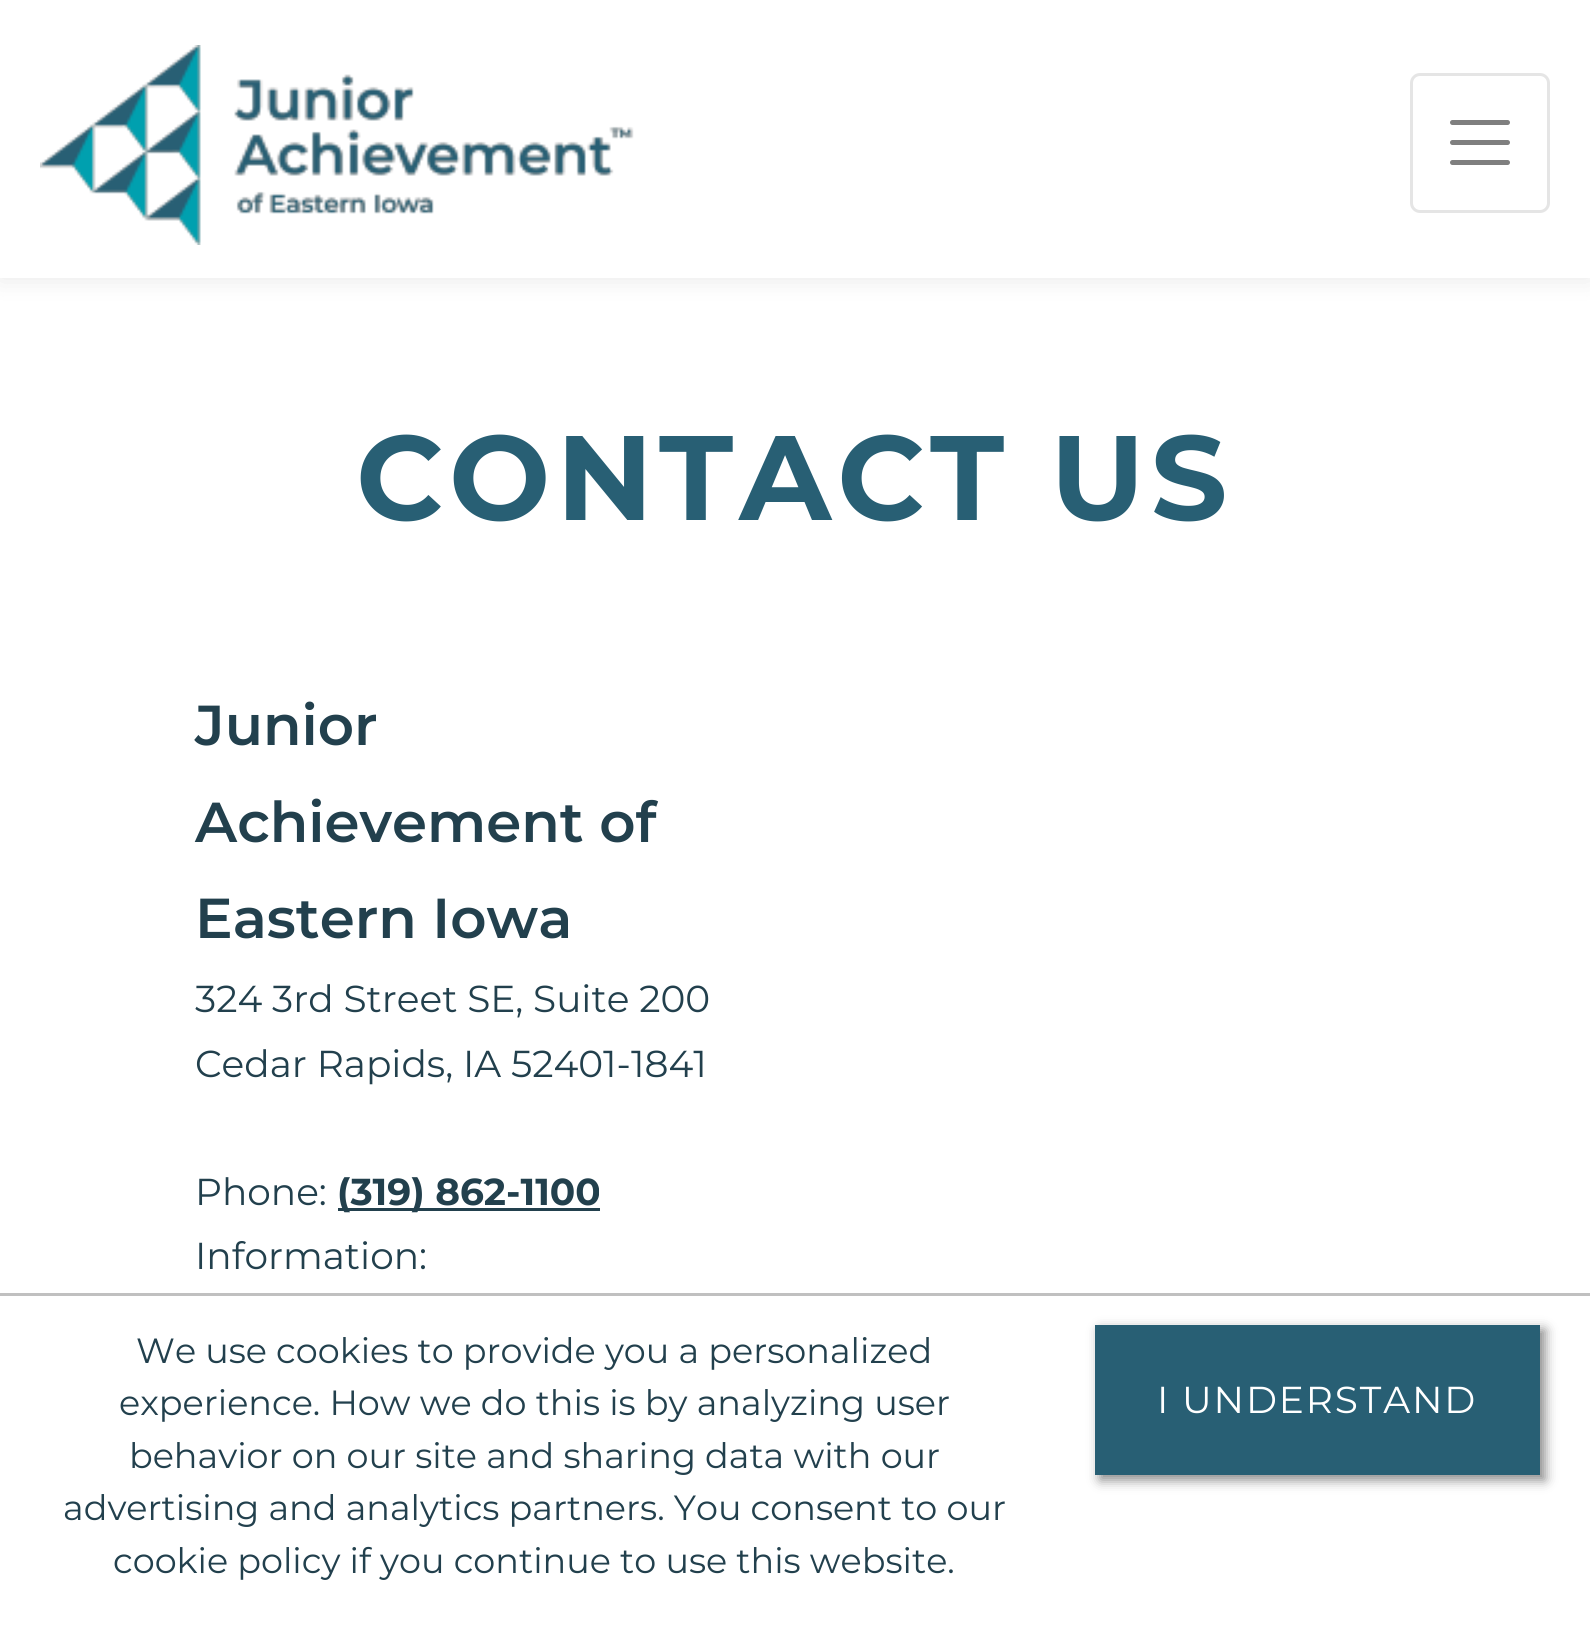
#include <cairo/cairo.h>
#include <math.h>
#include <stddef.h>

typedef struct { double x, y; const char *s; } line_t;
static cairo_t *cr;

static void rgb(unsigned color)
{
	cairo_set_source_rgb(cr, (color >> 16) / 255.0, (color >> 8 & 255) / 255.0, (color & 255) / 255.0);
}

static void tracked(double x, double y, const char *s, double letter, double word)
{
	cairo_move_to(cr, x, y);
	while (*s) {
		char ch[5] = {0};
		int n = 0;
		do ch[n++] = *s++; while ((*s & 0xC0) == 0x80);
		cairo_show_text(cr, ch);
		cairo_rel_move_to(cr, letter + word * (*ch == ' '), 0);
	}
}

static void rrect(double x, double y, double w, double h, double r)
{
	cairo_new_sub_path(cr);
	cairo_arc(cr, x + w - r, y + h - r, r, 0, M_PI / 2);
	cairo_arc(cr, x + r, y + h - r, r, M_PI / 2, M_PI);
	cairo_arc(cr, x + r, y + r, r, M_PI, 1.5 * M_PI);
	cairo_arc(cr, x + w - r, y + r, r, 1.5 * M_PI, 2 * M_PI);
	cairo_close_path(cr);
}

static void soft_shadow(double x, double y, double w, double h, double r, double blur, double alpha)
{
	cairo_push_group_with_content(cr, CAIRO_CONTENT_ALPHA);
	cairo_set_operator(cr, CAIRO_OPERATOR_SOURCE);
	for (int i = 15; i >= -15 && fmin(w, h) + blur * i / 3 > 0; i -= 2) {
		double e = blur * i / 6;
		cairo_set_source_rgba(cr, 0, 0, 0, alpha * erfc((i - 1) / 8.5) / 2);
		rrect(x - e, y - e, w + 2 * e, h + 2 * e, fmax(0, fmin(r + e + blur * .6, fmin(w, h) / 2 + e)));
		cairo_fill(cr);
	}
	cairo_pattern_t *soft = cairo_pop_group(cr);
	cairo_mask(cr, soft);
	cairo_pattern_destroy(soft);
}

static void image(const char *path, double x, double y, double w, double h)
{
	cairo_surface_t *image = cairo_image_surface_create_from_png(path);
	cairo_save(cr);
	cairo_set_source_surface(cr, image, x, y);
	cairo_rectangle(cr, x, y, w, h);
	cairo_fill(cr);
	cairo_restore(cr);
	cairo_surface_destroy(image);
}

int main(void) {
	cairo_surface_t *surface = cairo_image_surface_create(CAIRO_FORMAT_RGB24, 1590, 1625);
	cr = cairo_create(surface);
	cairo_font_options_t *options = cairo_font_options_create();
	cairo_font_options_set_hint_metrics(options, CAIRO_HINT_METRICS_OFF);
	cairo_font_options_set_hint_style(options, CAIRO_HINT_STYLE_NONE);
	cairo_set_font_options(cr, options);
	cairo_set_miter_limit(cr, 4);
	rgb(0xffffff);
	cairo_paint(cr);
	cairo_save(cr);
	cairo_set_fill_rule(cr, CAIRO_FILL_RULE_EVEN_ODD);
	cairo_new_path(cr);
	cairo_move_to(cr, 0, 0);
	cairo_line_to(cr, 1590, 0);
	cairo_line_to(cr, 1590, 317);
	cairo_line_to(cr, 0, 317);
	cairo_close_path(cr);
	cairo_move_to(cr, 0, 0);
	cairo_line_to(cr, 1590, 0);
	cairo_line_to(cr, 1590, 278);
	cairo_line_to(cr, 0, 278);
	cairo_close_path(cr);
	cairo_clip(cr);
	rgb(0x000000);
	soft_shadow(0, 0, 1590, 278, 0, 12.5, 0.1);
	cairo_restore(cr);
	cairo_set_source_rgba(cr, 1, 1, 1, 0.85);
	cairo_rectangle(cr, 0, 277, 1590, 1);
	cairo_fill(cr);
	image("img/1.png", 40, 45, 594, 200);
	rrect(1411.5, 74.5, 137, 137, 8.5);
	rgb(0xe5e5e5);
	cairo_set_line_width(cr, 3);
	cairo_stroke(cr);
	cairo_new_path(cr);
	cairo_move_to(cr, 1452.5, 122.5);
	cairo_line_to(cr, 1507.5, 122.5);
	cairo_move_to(cr, 1452.5, 142.5);
	cairo_line_to(cr, 1507.5, 142.5);
	cairo_move_to(cr, 1452.5, 162.5);
	cairo_line_to(cr, 1507.5, 162.5);
	rgb(0x7f7f7f);
	cairo_set_line_width(cr, 5);
	cairo_set_line_cap(cr, CAIRO_LINE_CAP_ROUND);
	cairo_stroke(cr);
	rgb(0x22404d);
	cairo_rectangle(cr, 338, 1208, 262, 3);
	cairo_fill(cr);
	rgb(0xc0c0c0);
	cairo_rectangle(cr, 0, 1293, 1590, 3);
	cairo_fill(cr);
	rgb(0x888888);
	soft_shadow(1100, 1330, 445, 150, 0, 6, 1);
	rgb(0x285f74);
	cairo_rectangle(cr, 1095, 1325, 445, 150);
	cairo_fill(cr);
	cairo_select_font_face(cr, "Montserrat", CAIRO_FONT_SLANT_NORMAL, CAIRO_FONT_WEIGHT_BOLD);
	cairo_set_font_size(cr, 120);
	tracked(356, 520, "CONTACT US", 6, 0);
	cairo_select_font_face(cr, "Montserrat SemiBold", CAIRO_FONT_SLANT_NORMAL, CAIRO_FONT_WEIGHT_NORMAL);
	cairo_set_font_size(cr, 56.25);
	rgb(0x22404d);
	{
		static const line_t items[] = {
			{195, 745, "Junior"},
			{195, 842, "Achievement of"},
			{195, 938, "Eastern Iowa"},
		};
		for (size_t i = 0; i < sizeof items / sizeof *items; i++) {
			cairo_move_to(cr, items[i].x, items[i].y);
			cairo_show_text(cr, items[i].s);
		}
	}
	cairo_select_font_face(cr, "Montserrat", CAIRO_FONT_SLANT_NORMAL, CAIRO_FONT_WEIGHT_NORMAL);
	cairo_set_font_size(cr, 37.5);
	{
		static const line_t items[] = {
			{195, 1012, "324 3rd Street SE, Suite 200"},
			{195, 1077, "Cedar Rapids, IA 52401-1841"},
			{195, 1205, "Phone:"},
		};
		for (size_t i = 0; i < sizeof items / sizeof *items; i++) {
			cairo_move_to(cr, items[i].x, items[i].y);
			cairo_show_text(cr, items[i].s);
		}
	}
	cairo_select_font_face(cr, "Montserrat", CAIRO_FONT_SLANT_NORMAL, CAIRO_FONT_WEIGHT_BOLD);
	cairo_move_to(cr, 337, 1205);
	cairo_show_text(cr, "(319) 862-1100");
	cairo_select_font_face(cr, "Montserrat", CAIRO_FONT_SLANT_NORMAL, CAIRO_FONT_WEIGHT_NORMAL);
	cairo_move_to(cr, 195, 1269);
	cairo_show_text(cr, "Information:");
	cairo_set_font_size(cr, 35);
	{
		static const line_t items[] = {
			{136, 1363, "We use cookies to provide you a personalized"},
			{119, 1415, "experience. How we do this is by analyzing user"},
			{129, 1468, "behavior on our site and sharing data with our"},
			{63, 1520, "advertising and analytics partners. You consent to our"},
			{113, 1573, "cookie policy if you continue to use this website."},
		};
		for (size_t i = 0; i < sizeof items / sizeof *items; i++) {
			cairo_move_to(cr, items[i].x, items[i].y);
			cairo_show_text(cr, items[i].s);
		}
	}
	cairo_set_font_size(cr, 37.5);
	rgb(0xffffff);
	tracked(1157, 1413, "I UNDERSTAND", 1.9, 0);
	cairo_surface_write_to_png(surface, "page.png");
	cairo_font_options_destroy(options);
	cairo_destroy(cr);
	cairo_surface_destroy(surface);
	return 0;
}
